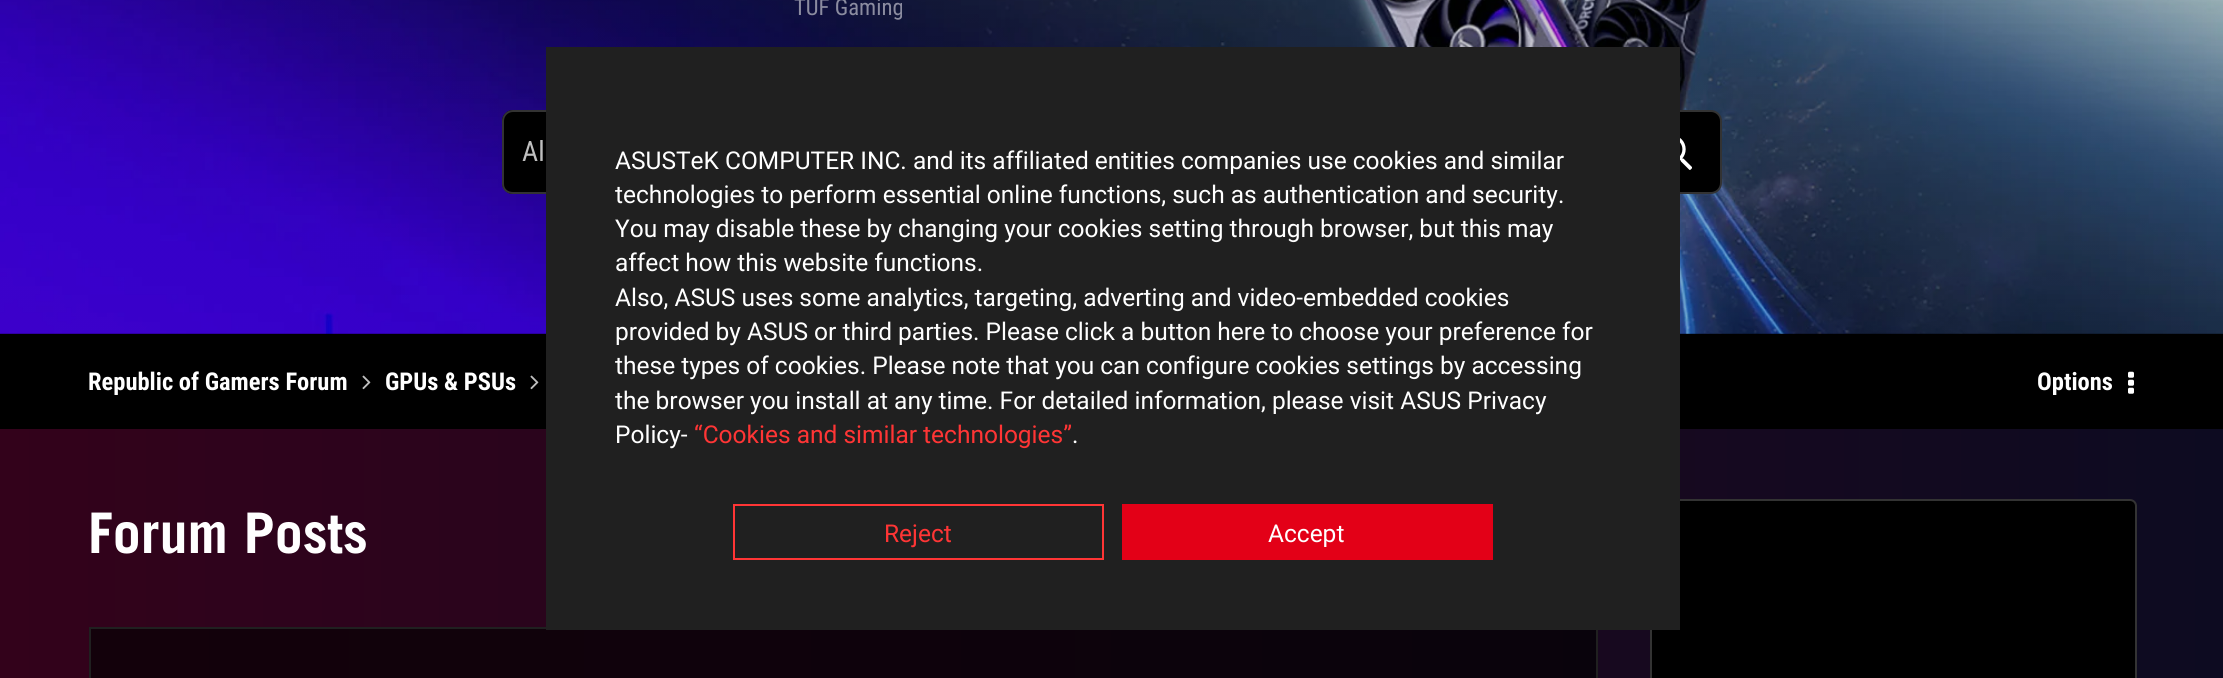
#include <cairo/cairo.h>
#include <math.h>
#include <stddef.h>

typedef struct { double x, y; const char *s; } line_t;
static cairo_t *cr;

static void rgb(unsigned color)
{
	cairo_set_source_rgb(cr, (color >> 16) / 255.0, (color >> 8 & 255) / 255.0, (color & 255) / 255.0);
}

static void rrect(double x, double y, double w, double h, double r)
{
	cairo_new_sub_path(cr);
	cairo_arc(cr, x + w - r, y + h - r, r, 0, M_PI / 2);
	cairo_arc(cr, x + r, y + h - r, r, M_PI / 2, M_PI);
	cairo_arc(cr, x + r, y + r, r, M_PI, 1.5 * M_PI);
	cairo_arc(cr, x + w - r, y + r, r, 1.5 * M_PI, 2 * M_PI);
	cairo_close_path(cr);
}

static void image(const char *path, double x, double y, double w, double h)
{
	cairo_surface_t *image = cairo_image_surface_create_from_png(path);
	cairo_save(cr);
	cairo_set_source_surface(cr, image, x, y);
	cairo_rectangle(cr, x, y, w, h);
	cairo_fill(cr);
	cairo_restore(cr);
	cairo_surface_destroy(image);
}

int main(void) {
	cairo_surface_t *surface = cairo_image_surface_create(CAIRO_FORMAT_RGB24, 2223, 678);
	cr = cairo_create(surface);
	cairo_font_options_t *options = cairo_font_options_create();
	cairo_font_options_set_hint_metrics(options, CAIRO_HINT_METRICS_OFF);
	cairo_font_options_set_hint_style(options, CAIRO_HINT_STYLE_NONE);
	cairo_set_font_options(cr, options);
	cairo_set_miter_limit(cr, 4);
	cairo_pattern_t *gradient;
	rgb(0xffffff);
	cairo_paint(cr);
	gradient = cairo_pattern_create_linear(0, 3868, 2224, 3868);
	cairo_pattern_add_color_stop_rgba(gradient, 0, 0.2, 0.008, 0.106, 1);
	cairo_pattern_add_color_stop_rgba(gradient, 1, 0.051, 0.043, 0.129, 1);
	cairo_set_source(cr, gradient);
	cairo_pattern_destroy(gradient);
	cairo_rectangle(cr, 0, 429, 2223, 249);
	cairo_fill(cr);
	gradient = cairo_pattern_create_linear(0, 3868, 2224, 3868);
	cairo_pattern_add_color_stop_rgba(gradient, 0, 0.078, 0.004, 0.043, 1);
	cairo_pattern_add_color_stop_rgba(gradient, 1, 0.02, 0.016, 0.051, 1);
	cairo_set_source(cr, gradient);
	cairo_pattern_destroy(gradient);
	cairo_rectangle(cr, 91, 629, 1505, 49);
	cairo_fill(cr);
	rgb(0x000000);
	cairo_rectangle(cr, 0, 333, 2223, 96);
	cairo_fill(cr);
	image("img/1.png", 0, 0, 2223, 334);
	cairo_new_path(cr);
	cairo_move_to(cr, 513, 110);
	cairo_line_to(cr, 767, 110);
	cairo_line_to(cr, 767, 194);
	cairo_line_to(cr, 513, 194);
	cairo_curve_to(cr, 507, 194, 502, 189, 502, 183);
	cairo_line_to(cr, 502, 121);
	cairo_curve_to(cr, 502, 115, 507, 110, 513, 110);
	cairo_close_path(cr);
	cairo_fill(cr);
	rgb(0x333333);
	cairo_set_fill_rule(cr, CAIRO_FILL_RULE_EVEN_ODD);
	cairo_new_path(cr);
	cairo_move_to(cr, 513, 110);
	cairo_line_to(cr, 766, 110);
	cairo_line_to(cr, 766, 194);
	cairo_line_to(cr, 513, 194);
	cairo_curve_to(cr, 507, 194, 502, 190, 502, 184);
	cairo_line_to(cr, 502, 121);
	cairo_curve_to(cr, 502, 115, 507, 110, 513, 110);
	cairo_close_path(cr);
	cairo_move_to(cr, 513, 112);
	cairo_line_to(cr, 766, 112);
	cairo_line_to(cr, 766, 192);
	cairo_line_to(cr, 513, 192);
	cairo_curve_to(cr, 508, 192, 504, 189, 504, 184);
	cairo_line_to(cr, 504, 121);
	cairo_curve_to(cr, 504, 116, 508, 112, 513, 112);
	cairo_close_path(cr);
	cairo_fill(cr);
	rgb(0x000000);
	cairo_new_path(cr);
	cairo_move_to(cr, 768, 111);
	cairo_line_to(cr, 1711, 111);
	cairo_curve_to(cr, 1716.5, 111, 1721, 115.5, 1721, 121);
	cairo_line_to(cr, 1721, 183);
	cairo_curve_to(cr, 1721, 188.5, 1716.5, 193, 1711, 193);
	cairo_line_to(cr, 768, 193);
	cairo_close_path(cr);
	cairo_fill_preserve(cr);
	rgb(0x333333);
	cairo_stroke(cr);
	image("img/2.png", 1680, 138, 12, 32);
	image("img/3.png", 362, 375, 9, 15);
	image("img/3.png", 530, 375, 9, 15);
	image("img/4.png", 2128, 371, 6, 23);
	cairo_rectangle(cr, 90, 628, 1507, 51);
	rgb(0x202020);
	cairo_stroke(cr);
	rgb(0x000000);
	rrect(1651, 500, 485, 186, 6);
	cairo_fill_preserve(cr);
	rgb(0x333333);
	cairo_stroke(cr);
	rgb(0x202020);
	cairo_rectangle(cr, 546, 47, 1134, 583);
	cairo_fill(cr);
	cairo_rectangle(cr, 734, 505, 369, 54);
	rgb(0xff3535);
	cairo_stroke(cr);
	rgb(0xe30017);
	cairo_rectangle(cr, 1122, 504, 371, 56);
	cairo_fill(cr);
	cairo_select_font_face(cr, "Roboto Condensed", CAIRO_FONT_SLANT_NORMAL, CAIRO_FONT_WEIGHT_NORMAL);
	cairo_set_font_size(cr, 22.75);
	rgb(0x8b8ca0);
	cairo_move_to(cr, 794, 15);
	cairo_show_text(cr, "TUF Gaming");
	cairo_set_font_size(cr, 28);
	rgb(0xbfbfbf);
	cairo_move_to(cr, 522, 161);
	cairo_show_text(cr, "Al");
	cairo_select_font_face(cr, "Roboto Condensed", CAIRO_FONT_SLANT_NORMAL, CAIRO_FONT_WEIGHT_BOLD);
	cairo_set_font_size(cr, 24.5);
	rgb(0xffffff);
	{
		static const line_t items[] = {
			{88, 390, "Republic of Gamers Forum"},
			{385, 390, "GPUs & PSUs"},
			{2037, 390, "Options"},
		};
		for (size_t i = 0; i < sizeof items / sizeof *items; i++) {
			cairo_move_to(cr, items[i].x, items[i].y);
			cairo_show_text(cr, items[i].s);
		}
	}
	cairo_select_font_face(cr, "Trade Gothic", CAIRO_FONT_SLANT_NORMAL, CAIRO_FONT_WEIGHT_BOLD);
	cairo_set_font_size(cr, 56);
	cairo_move_to(cr, 88, 553);
	cairo_show_text(cr, "Forum Posts");
	cairo_select_font_face(cr, "Roboto", CAIRO_FONT_SLANT_NORMAL, CAIRO_FONT_WEIGHT_NORMAL);
	cairo_set_font_size(cr, 24.5);
	{
		static const line_t items[] = {
			{615, 169, "ASUSTeK COMPUTER INC. and its affiliated entities companies use cookies and similar"},
			{615, 203, "technologies to perform essential online functions, such as authentication and security."},
			{615, 237, "You may disable these by changing your cookies setting through browser, but this may"},
			{615, 271, "affect how this website functions."},
			{615, 306, "Also, ASUS uses some analytics, targeting, adverting and video-embedded cookies"},
			{615, 340, "provided by ASUS or third parties. Please click a button here to choose your preference for"},
			{615, 374, "these types of cookies. Please note that you can configure cookies settings by accessing"},
			{615, 409, "the browser you install at any time. For detailed information, please visit ASUS Privacy"},
			{615, 443, "Policy-"},
		};
		for (size_t i = 0; i < sizeof items / sizeof *items; i++) {
			cairo_move_to(cr, items[i].x, items[i].y);
			cairo_show_text(cr, items[i].s);
		}
	}
	rgb(0xff3535);
	cairo_move_to(cr, 694, 443);
	cairo_show_text(cr, "“Cookies and similar technologies”");
	rgb(0xffffff);
	cairo_move_to(cr, 1072, 443);
	cairo_show_text(cr, ".");
	rgb(0xff3535);
	cairo_move_to(cr, 884, 542);
	cairo_show_text(cr, "Reject");
	rgb(0xffffff);
	cairo_move_to(cr, 1268, 542);
	cairo_show_text(cr, "Accept");
	cairo_surface_write_to_png(surface, "page.png");
	cairo_font_options_destroy(options);
	cairo_destroy(cr);
	cairo_surface_destroy(surface);
	return 0;
}
